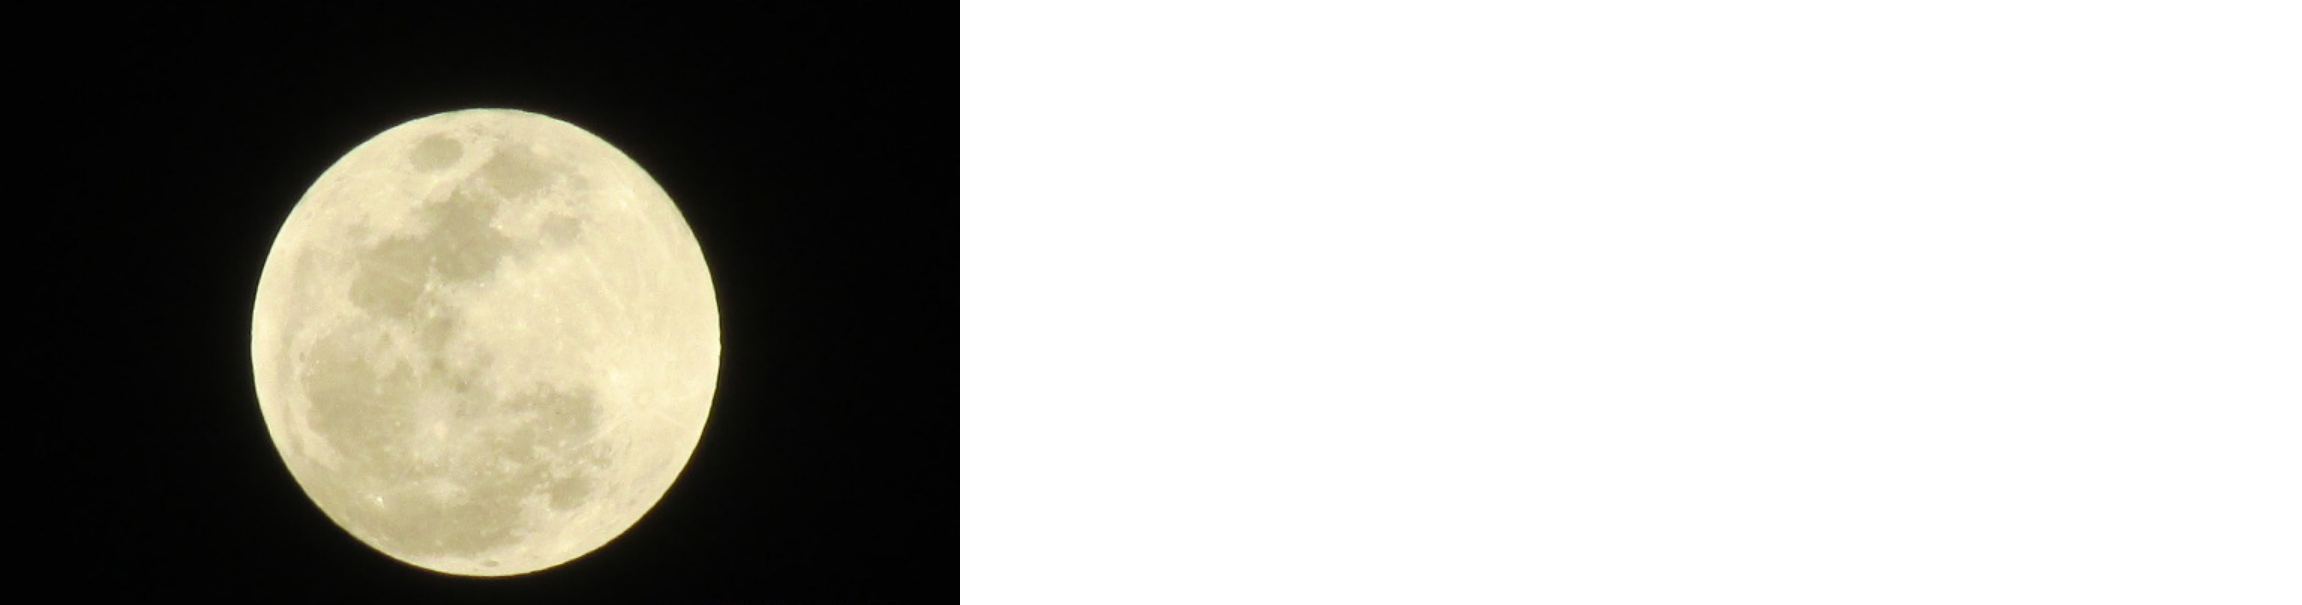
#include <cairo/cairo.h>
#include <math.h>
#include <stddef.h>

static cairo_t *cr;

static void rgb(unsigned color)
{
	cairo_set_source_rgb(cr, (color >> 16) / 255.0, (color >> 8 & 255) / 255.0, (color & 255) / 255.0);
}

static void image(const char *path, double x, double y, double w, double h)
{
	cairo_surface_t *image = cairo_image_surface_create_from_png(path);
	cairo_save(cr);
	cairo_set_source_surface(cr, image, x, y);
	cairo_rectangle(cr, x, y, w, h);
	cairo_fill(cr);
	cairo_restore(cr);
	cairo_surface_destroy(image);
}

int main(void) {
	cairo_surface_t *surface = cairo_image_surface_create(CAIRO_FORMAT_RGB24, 2302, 605);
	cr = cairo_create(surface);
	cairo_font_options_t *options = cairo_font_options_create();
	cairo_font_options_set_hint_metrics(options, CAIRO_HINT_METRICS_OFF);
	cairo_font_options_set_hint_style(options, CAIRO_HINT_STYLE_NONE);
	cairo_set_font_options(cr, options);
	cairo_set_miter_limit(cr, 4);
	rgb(0xffffff);
	cairo_paint(cr);
	image("img/1.png", 0, 0, 960, 605);
	cairo_surface_write_to_png(surface, "page.png");
	cairo_font_options_destroy(options);
	cairo_destroy(cr);
	cairo_surface_destroy(surface);
	return 0;
}
